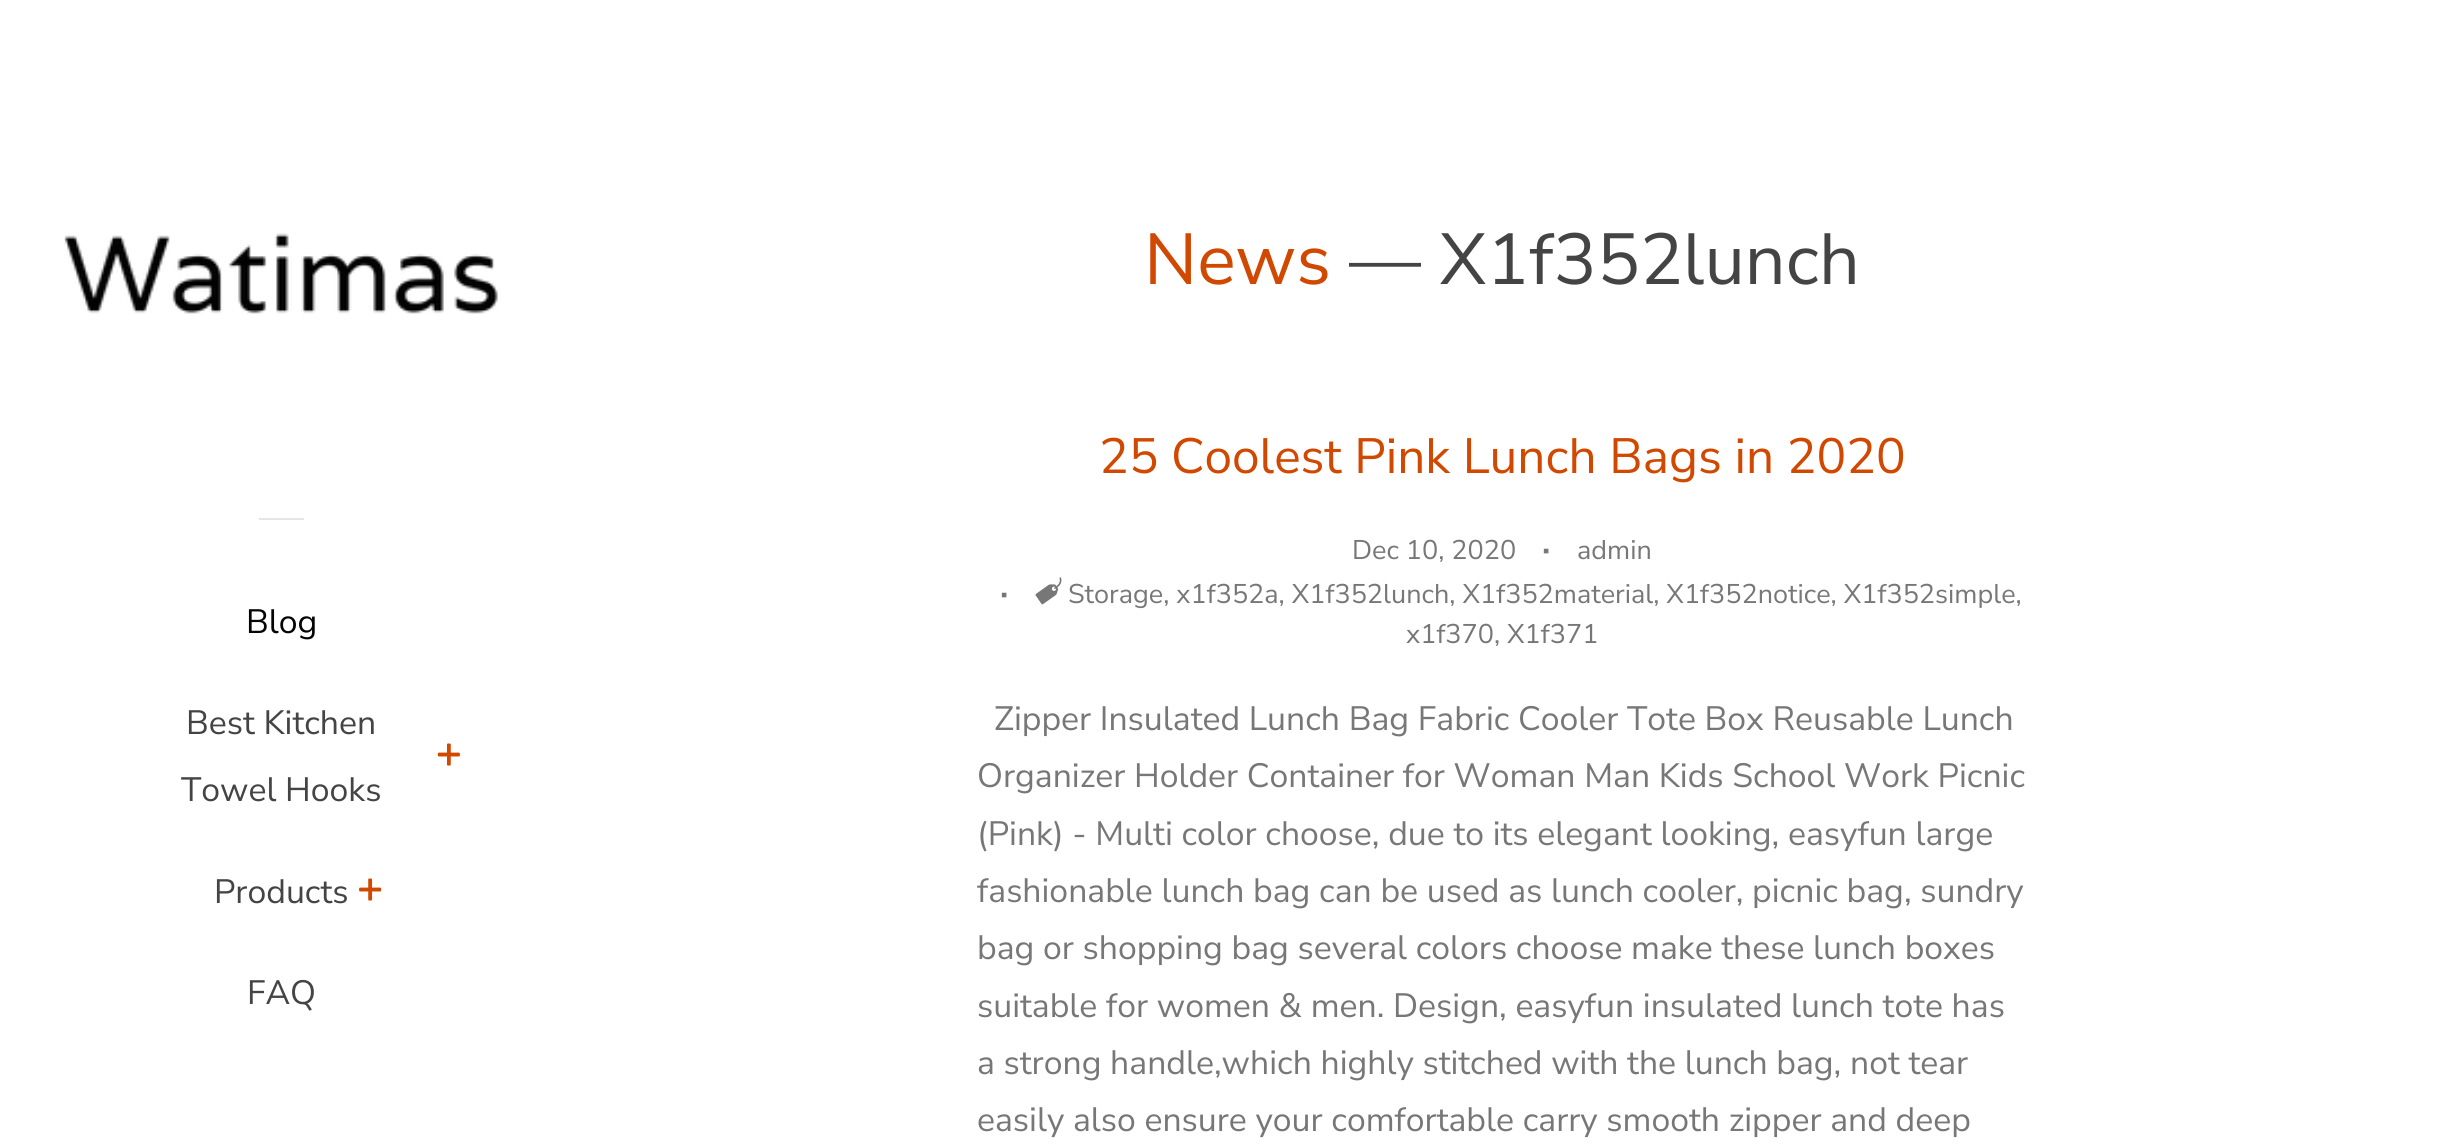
#include <cairo/cairo.h>
#include <math.h>
#include <stddef.h>

typedef struct { double x, y; const char *s; } line_t;
static cairo_t *cr;

static void rgb(unsigned color)
{
	cairo_set_source_rgb(cr, (color >> 16) / 255.0, (color >> 8 & 255) / 255.0, (color & 255) / 255.0);
}

static void image(const char *path, double x, double y, double w, double h)
{
	cairo_surface_t *image = cairo_image_surface_create_from_png(path);
	cairo_save(cr);
	cairo_set_source_surface(cr, image, x, y);
	cairo_rectangle(cr, x, y, w, h);
	cairo_fill(cr);
	cairo_restore(cr);
	cairo_surface_destroy(image);
}

int main(void) {
	cairo_surface_t *surface = cairo_image_surface_create(CAIRO_FORMAT_RGB24, 2440, 1146);
	cr = cairo_create(surface);
	cairo_font_options_t *options = cairo_font_options_create();
	cairo_font_options_set_hint_metrics(options, CAIRO_HINT_METRICS_OFF);
	cairo_font_options_set_hint_style(options, CAIRO_HINT_STYLE_NONE);
	cairo_set_font_options(cr, options);
	cairo_set_miter_limit(cr, 4);
	rgb(0xffffff);
	cairo_paint(cr);
	image("img/1.png", 64, 233, 434, 81);
	rgb(0xe6e6e6);
	cairo_rectangle(cr, 259, 518, 45, 2);
	cairo_fill(cr);
	image("img/2.png", 437, 743, 23, 23);
	image("img/3.png", 359, 878, 23, 23);
	image("img/4.png", 1035, 577, 27, 28);
	cairo_select_font_face(cr, "Nunito Sans", CAIRO_FONT_SLANT_NORMAL, CAIRO_FONT_WEIGHT_NORMAL);
	cairo_set_font_size(cr, 33.75);
	rgb(0x040404);
	cairo_move_to(cr, 246, 633);
	cairo_show_text(cr, "Blog");
	rgb(0x444444);
	{
		static const line_t items[] = {
			{186, 734, "Best Kitchen"},
			{181, 801, "Towel Hooks"},
			{214, 903, "Products"},
			{247, 1004, "FAQ"},
		};
		for (size_t i = 0; i < sizeof items / sizeof *items; i++) {
			cairo_move_to(cr, items[i].x, items[i].y);
			cairo_show_text(cr, items[i].s);
		}
	}
	cairo_set_font_size(cr, 72);
	rgb(0xd14800);
	cairo_move_to(cr, 1144, 284);
	cairo_show_text(cr, "News");
	rgb(0x444444);
	cairo_move_to(cr, 1349, 284);
	cairo_show_text(cr, "— X1f352lunch");
	cairo_set_font_size(cr, 49.5);
	rgb(0xd14800);
	cairo_move_to(cr, 1099, 473);
	cairo_show_text(cr, "25 Coolest Pink Lunch Bags in 2020");
	cairo_set_font_size(cr, 27);
	rgb(0x777777);
	cairo_move_to(cr, 1352, 559);
	cairo_show_text(cr, "Dec 10, 2020");
	cairo_set_font_size(cr, 45);
	cairo_move_to(cr, 1541, 563);
	cairo_show_text(cr, "·");
	cairo_set_font_size(cr, 27);
	cairo_move_to(cr, 1577, 559);
	cairo_show_text(cr, "admin");
	cairo_set_font_size(cr, 45);
	cairo_move_to(cr, 999, 607);
	cairo_show_text(cr, "·");
	cairo_set_font_size(cr, 27);
	cairo_move_to(cr, 1068, 603);
	cairo_show_text(cr, "Storage, x1f352a, X1f352lunch, X1f352material, X1f352notice, X1f352simple,");
	cairo_move_to(cr, 1406, 643);
	cairo_show_text(cr, "x1f370, X1f371");
	cairo_set_font_size(cr, 33.75);
	{
		static const line_t items[] = {
			{994, 730, "Zipper Insulated Lunch Bag Fabric Cooler Tote Box Reusable Lunch"},
			{977, 787, "Organizer Holder Container for Woman Man Kids School Work Picnic"},
			{977, 845, "(Pink) - Multi color choose, due to its elegant looking, easyfun large"},
			{977, 902, "fashionable lunch bag can be used as lunch cooler, picnic bag, sundry"},
			{977, 959, "bag or shopping bag several colors choose make these lunch boxes"},
			{977, 1017, "suitable for women & men. Design, easyfun insulated lunch tote has"},
			{977, 1074, "a strong handle,which highly stitched with the lunch bag, not tear"},
			{977, 1131, "easily also ensure your comfortable carry smooth zipper and deep"},
		};
		for (size_t i = 0; i < sizeof items / sizeof *items; i++) {
			cairo_move_to(cr, items[i].x, items[i].y);
			cairo_show_text(cr, items[i].s);
		}
	}
	cairo_surface_write_to_png(surface, "page.png");
	cairo_font_options_destroy(options);
	cairo_destroy(cr);
	cairo_surface_destroy(surface);
	return 0;
}
